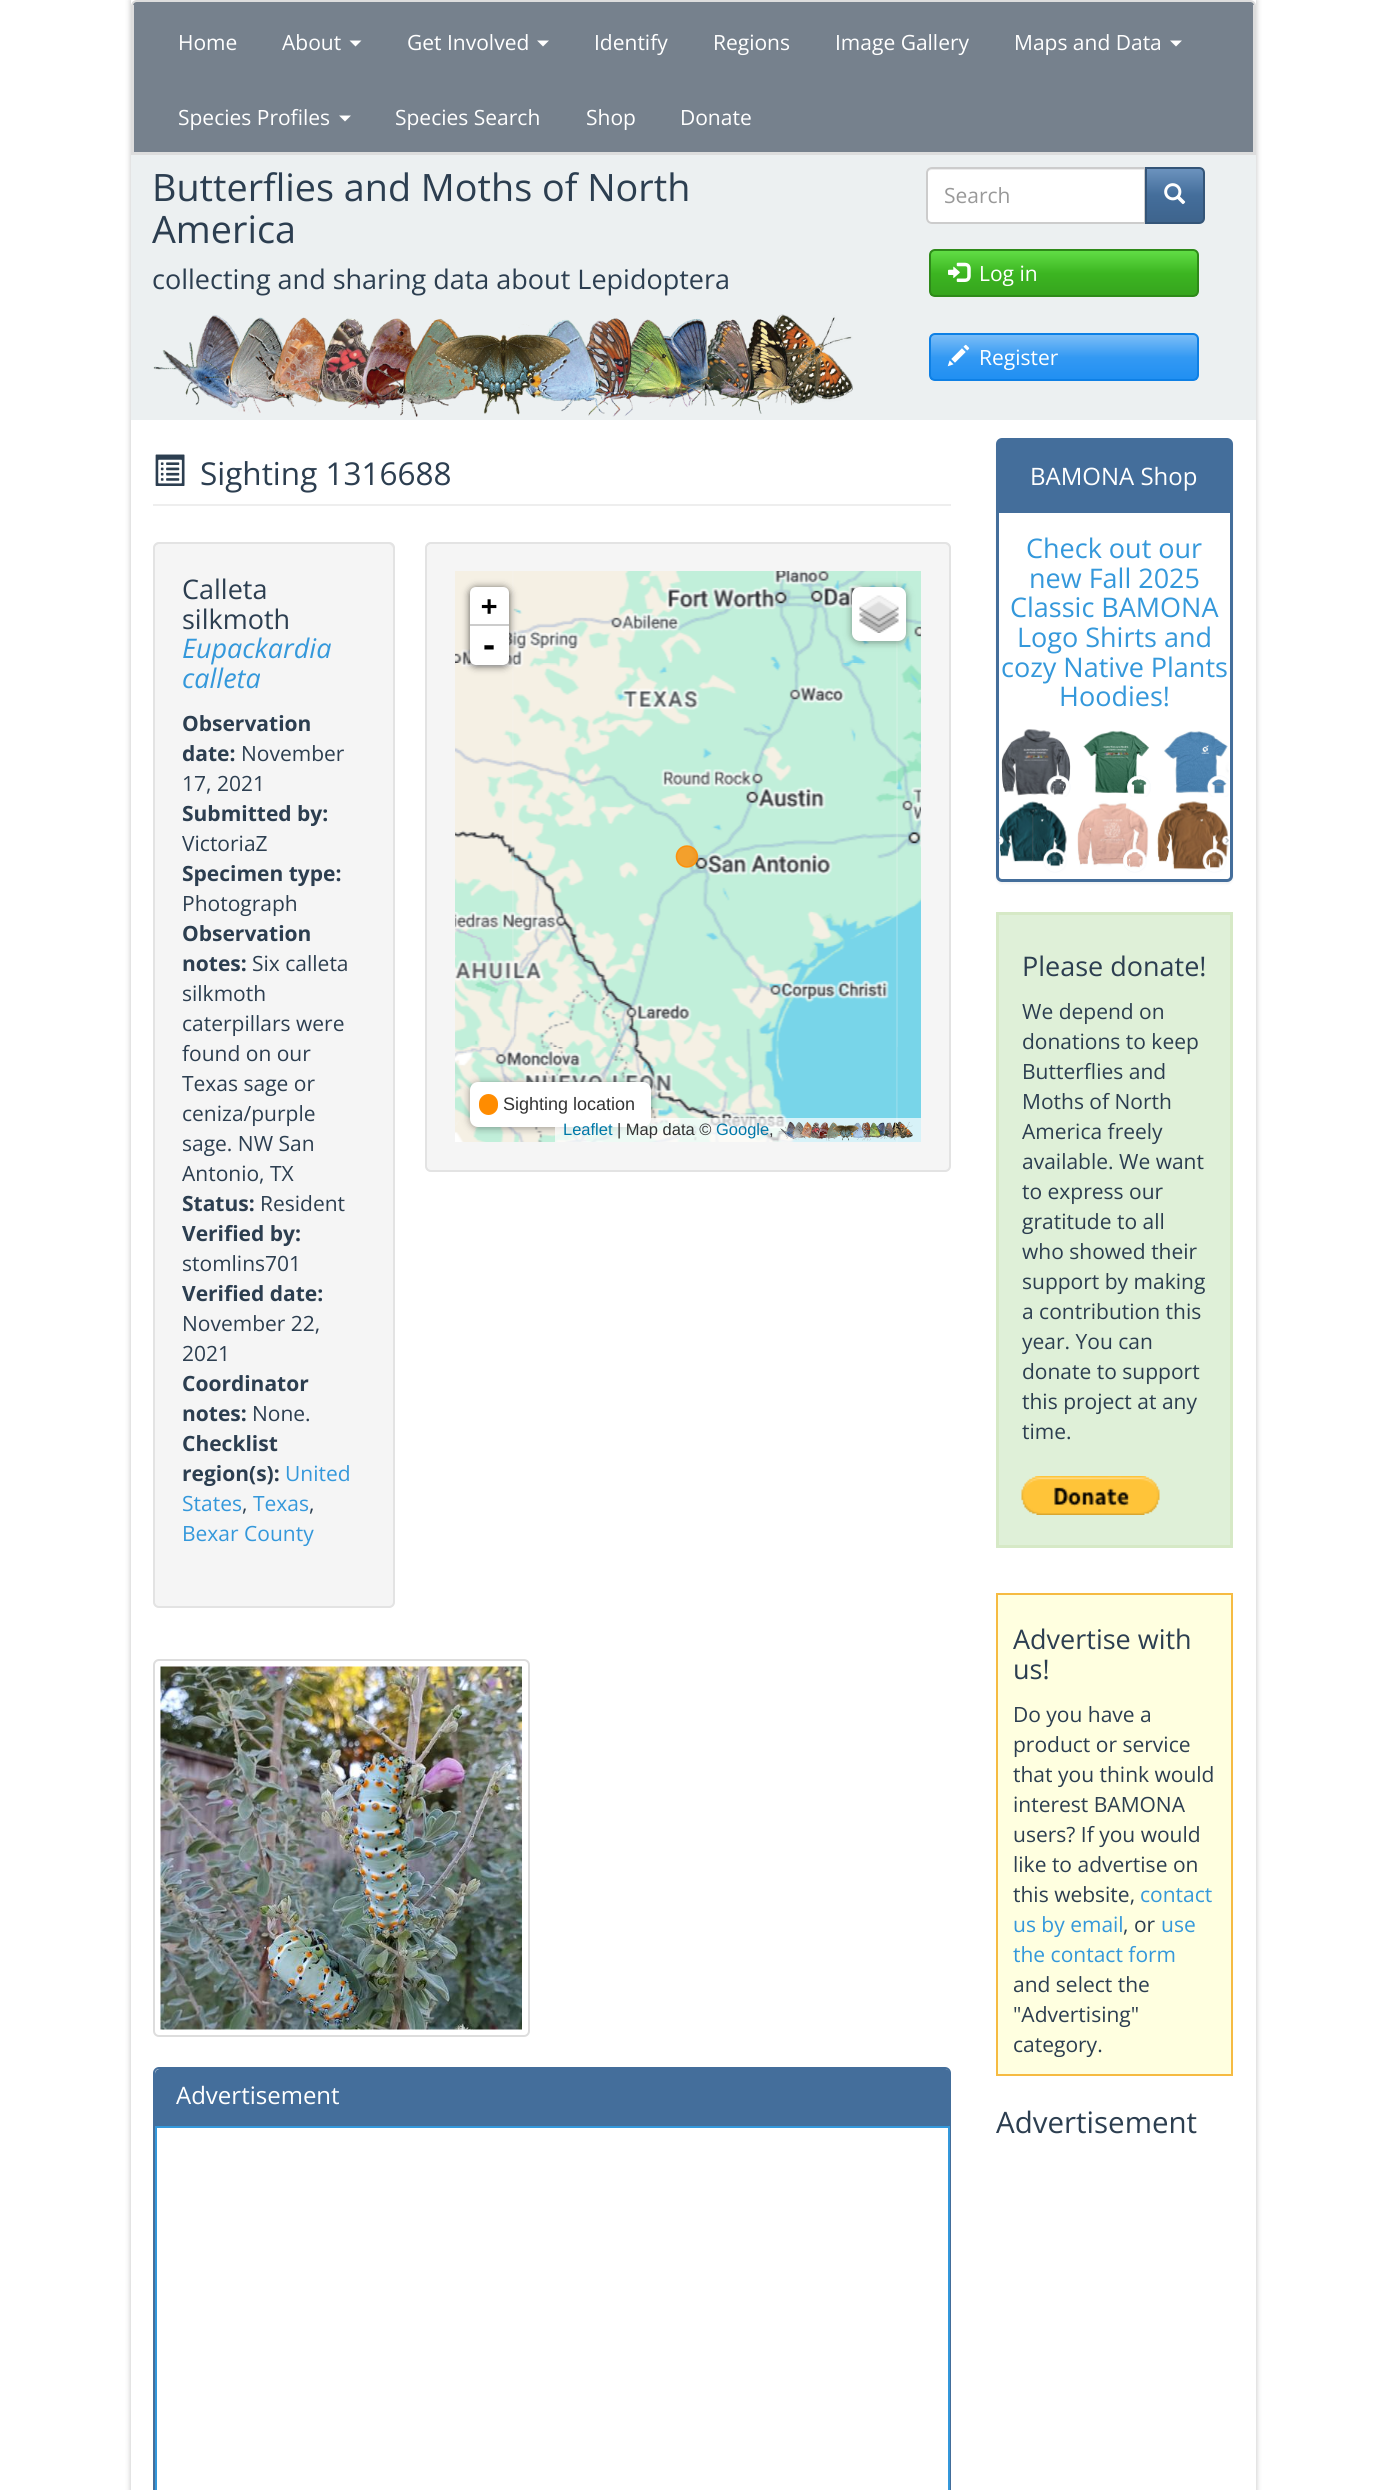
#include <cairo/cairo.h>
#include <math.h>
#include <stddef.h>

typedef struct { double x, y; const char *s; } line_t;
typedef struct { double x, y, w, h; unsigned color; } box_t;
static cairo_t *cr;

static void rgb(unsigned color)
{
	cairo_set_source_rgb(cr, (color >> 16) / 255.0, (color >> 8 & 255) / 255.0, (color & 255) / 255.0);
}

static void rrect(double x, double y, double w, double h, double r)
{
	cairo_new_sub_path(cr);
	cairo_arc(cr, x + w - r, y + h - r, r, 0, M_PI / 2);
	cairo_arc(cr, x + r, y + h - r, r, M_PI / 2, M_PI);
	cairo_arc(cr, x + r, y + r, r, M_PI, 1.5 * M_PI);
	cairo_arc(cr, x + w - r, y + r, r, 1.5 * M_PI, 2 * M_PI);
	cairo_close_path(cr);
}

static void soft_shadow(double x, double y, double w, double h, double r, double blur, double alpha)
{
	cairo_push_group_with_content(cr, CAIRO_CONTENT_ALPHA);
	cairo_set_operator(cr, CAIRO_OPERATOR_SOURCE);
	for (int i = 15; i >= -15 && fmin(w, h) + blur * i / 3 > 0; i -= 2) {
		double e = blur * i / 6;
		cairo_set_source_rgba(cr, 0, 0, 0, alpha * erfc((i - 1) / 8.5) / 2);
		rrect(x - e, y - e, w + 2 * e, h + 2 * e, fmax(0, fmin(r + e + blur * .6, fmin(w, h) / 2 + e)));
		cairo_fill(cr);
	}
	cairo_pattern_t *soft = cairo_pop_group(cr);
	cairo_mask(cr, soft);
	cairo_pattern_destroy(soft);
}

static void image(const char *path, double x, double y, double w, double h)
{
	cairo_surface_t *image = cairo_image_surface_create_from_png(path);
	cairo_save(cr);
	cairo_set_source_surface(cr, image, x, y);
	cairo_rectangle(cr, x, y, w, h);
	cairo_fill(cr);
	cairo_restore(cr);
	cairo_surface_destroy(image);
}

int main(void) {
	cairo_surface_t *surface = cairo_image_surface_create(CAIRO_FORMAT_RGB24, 1384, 2490);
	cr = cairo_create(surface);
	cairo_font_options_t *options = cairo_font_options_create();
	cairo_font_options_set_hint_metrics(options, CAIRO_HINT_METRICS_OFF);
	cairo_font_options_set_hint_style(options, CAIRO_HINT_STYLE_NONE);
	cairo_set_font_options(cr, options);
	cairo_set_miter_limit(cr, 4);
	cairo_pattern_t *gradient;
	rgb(0xffffff);
	cairo_paint(cr);
	cairo_save(cr);
	cairo_set_fill_rule(cr, CAIRO_FILL_RULE_EVEN_ODD);
	cairo_new_path(cr);
	cairo_move_to(cr, 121, 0);
	cairo_line_to(cr, 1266, 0);
	cairo_line_to(cr, 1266, 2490);
	cairo_line_to(cr, 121, 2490);
	cairo_close_path(cr);
	cairo_move_to(cr, 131, 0);
	cairo_line_to(cr, 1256, 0);
	cairo_line_to(cr, 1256, 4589);
	cairo_line_to(cr, 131, 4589);
	cairo_close_path(cr);
	cairo_clip(cr);
	rgb(0x000000);
	soft_shadow(131, 0, 1125, 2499, 0, 3, 0.25);
	cairo_restore(cr);
	rgb(0x76818d);
	cairo_new_path(cr);
	cairo_move_to(cr, 137, 1);
	cairo_line_to(cr, 1250, 1);
	cairo_curve_to(cr, 1253, 1, 1255, 3, 1255, 6);
	cairo_line_to(cr, 1255, 154);
	cairo_line_to(cr, 132, 154);
	cairo_line_to(cr, 132, 6);
	cairo_curve_to(cr, 132, 3, 134, 1, 137, 1);
	cairo_close_path(cr);
	cairo_fill_preserve(cr);
	rgb(0xdddddd);
	cairo_stroke(cr);
	{
		static const box_t items[] = {
			{1253, 5, 1, 148, 0xdddddd},
			{132, 152, 1122, 1, 0xdddddd},
			{133, 5, 1, 148, 0xdddddd},
		};
		for (size_t i = 0; i < sizeof items / sizeof *items; i++) {
			rgb(items[i].color);
			cairo_rectangle(cr, items[i].x, items[i].y, items[i].w, items[i].h);
			cairo_fill(cr);
		}
	}
	rgb(0xffffff);
	cairo_new_path(cr);
	cairo_move_to(cr, 349.5, 40.5);
	cairo_line_to(cr, 361.5, 40.5);
	cairo_line_to(cr, 355.5, 46.5);
	cairo_close_path(cr);
	cairo_fill(cr);
	cairo_new_path(cr);
	cairo_move_to(cr, 537, 40.5);
	cairo_line_to(cr, 549, 40.5);
	cairo_line_to(cr, 543, 46.5);
	cairo_close_path(cr);
	cairo_fill(cr);
	cairo_new_path(cr);
	cairo_move_to(cr, 1170, 40.5);
	cairo_line_to(cr, 1182, 40.5);
	cairo_line_to(cr, 1176, 46.5);
	cairo_close_path(cr);
	cairo_fill(cr);
	cairo_new_path(cr);
	cairo_move_to(cr, 339, 115.5);
	cairo_line_to(cr, 351, 115.5);
	cairo_line_to(cr, 345, 121.5);
	cairo_close_path(cr);
	cairo_fill(cr);
	rgb(0xecf0f1);
	cairo_rectangle(cr, 131, 155, 1125, 265);
	cairo_fill(cr);
	image("img/1.png", 153, 314, 700, 103);
	rgb(0xffffff);
	cairo_new_path(cr);
	cairo_move_to(cr, 932, 167);
	cairo_line_to(cr, 1146, 167);
	cairo_line_to(cr, 1146, 224);
	cairo_line_to(cr, 932, 224);
	cairo_curve_to(cr, 928.5, 224, 926, 221.5, 926, 218);
	cairo_line_to(cr, 926, 173);
	cairo_curve_to(cr, 926, 169.5, 928.5, 167, 932, 167);
	cairo_close_path(cr);
	cairo_fill(cr);
	rgb(0xececec);
	cairo_new_path(cr);
	cairo_move_to(cr, 932, 170);
	cairo_line_to(cr, 1144, 170);
	cairo_line_to(cr, 1144, 222);
	cairo_line_to(cr, 1145, 222);
	cairo_line_to(cr, 1145, 168);
	cairo_line_to(cr, 932, 168);
	cairo_curve_to(cr, 929, 168, 927, 171, 927, 174);
	cairo_curve_to(cr, 927, 172, 929, 170, 932, 170);
	cairo_close_path(cr);
	cairo_fill(cr);
	cairo_new_path(cr);
	cairo_move_to(cr, 932, 168);
	cairo_line_to(cr, 1145, 168);
	cairo_line_to(cr, 1145, 223);
	cairo_line_to(cr, 932, 223);
	cairo_curve_to(cr, 929, 223, 927, 221, 927, 218);
	cairo_line_to(cr, 927, 173);
	cairo_curve_to(cr, 927, 170, 929, 168, 932, 168);
	cairo_close_path(cr);
	rgb(0xcccccc);
	cairo_stroke(cr);
	gradient = cairo_pattern_create_linear(1175, 168, 1175, 222);
	cairo_pattern_add_color_stop_rgba(gradient, 0, 0.427, 0.58, 0.749, 1);
	cairo_pattern_add_color_stop_rgba(gradient, 0.5, 0.267, 0.431, 0.608, 1);
	cairo_pattern_add_color_stop_rgba(gradient, 1, 0.243, 0.392, 0.553, 1);
	cairo_set_source(cr, gradient);
	cairo_pattern_destroy(gradient);
	cairo_rectangle(cr, 1147, 168, 56, 54);
	cairo_fill(cr);
	cairo_new_path(cr);
	cairo_move_to(cr, 1146, 168);
	cairo_line_to(cr, 1199, 168);
	cairo_curve_to(cr, 1202, 168, 1204, 170, 1204, 173);
	cairo_line_to(cr, 1204, 218);
	cairo_curve_to(cr, 1204, 221, 1202, 223, 1199, 223);
	cairo_line_to(cr, 1146, 223);
	cairo_close_path(cr);
	rgb(0x345578);
	cairo_stroke(cr);
	image("img/2.png", 1164, 183, 22, 22);
	cairo_save(cr);
	rrect(929, 249, 270, 48, 6);
	cairo_clip(cr);
	gradient = cairo_pattern_create_linear(1064, 251, 1064, 296);
	cairo_pattern_add_color_stop_rgba(gradient, 0, 0.38, 0.867, 0.271, 1);
	cairo_pattern_add_color_stop_rgba(gradient, 0.5, 0.235, 0.71, 0.129, 1);
	cairo_pattern_add_color_stop_rgba(gradient, 1, 0.212, 0.643, 0.118, 1);
	cairo_set_source(cr, gradient);
	cairo_pattern_destroy(gradient);
	cairo_rectangle(cr, 930, 251, 267, 45);
	cairo_fill(cr);
	cairo_restore(cr);
	rrect(930, 250, 268, 46, 5);
	rgb(0x2e8a19);
	cairo_stroke(cr);
	image("img/3.png", 948, 262, 23, 20);
	cairo_save(cr);
	rrect(929, 333, 270, 48, 6);
	cairo_clip(cr);
	gradient = cairo_pattern_create_linear(1064, 335, 1064, 380);
	cairo_pattern_add_color_stop_rgba(gradient, 0, 0.482, 0.741, 0.969, 1);
	cairo_pattern_add_color_stop_rgba(gradient, 0.5, 0.2, 0.6, 0.953, 1);
	cairo_pattern_add_color_stop_rgba(gradient, 1, 0.125, 0.561, 0.949, 1);
	cairo_set_source(cr, gradient);
	cairo_pattern_destroy(gradient);
	cairo_rectangle(cr, 930, 335, 267, 45);
	cairo_fill(cr);
	cairo_restore(cr);
	rrect(930, 334, 268, 46, 5);
	rgb(0x0e80e5);
	cairo_stroke(cr);
	image("img/4.png", 947, 344, 23, 23);
	rgb(0xeeeeee);
	cairo_rectangle(cr, 153, 504, 798, 2);
	cairo_fill(cr);
	image("img/5.png", 155, 454, 30, 32);
	rgb(0xf5f5f5);
	rrect(153, 542, 242, 1066, 6);
	cairo_fill(cr);
	rgb(0xe9e9e9);
	cairo_new_path(cr);
	cairo_move_to(cr, 159, 544);
	cairo_line_to(cr, 388, 544);
	cairo_curve_to(cr, 391, 544, 393, 547, 393, 549);
	cairo_line_to(cr, 393, 548);
	cairo_curve_to(cr, 393, 545, 391, 543, 388, 543);
	cairo_line_to(cr, 160, 543);
	cairo_curve_to(cr, 158, 543, 156, 544, 155, 546);
	cairo_curve_to(cr, 156, 545, 158, 544, 159, 544);
	cairo_close_path(cr);
	cairo_fill(cr);
	rrect(154, 543, 240, 1064, 5);
	rgb(0xe3e3e3);
	cairo_stroke(cr);
	rgb(0xf5f5f5);
	rrect(425, 542, 526, 630, 6);
	cairo_fill(cr);
	rgb(0xe9e9e9);
	cairo_new_path(cr);
	cairo_move_to(cr, 430, 544);
	cairo_line_to(cr, 945, 544);
	cairo_curve_to(cr, 947, 544, 950, 547, 950, 549);
	cairo_line_to(cr, 950, 548);
	cairo_curve_to(cr, 950, 545, 948, 543, 945, 543);
	cairo_line_to(cr, 431, 543);
	cairo_curve_to(cr, 428, 543, 426, 545, 426, 548);
	cairo_line_to(cr, 426, 549);
	cairo_curve_to(cr, 426, 547, 428, 544, 430, 544);
	cairo_close_path(cr);
	cairo_fill(cr);
	rrect(426, 543, 524, 628, 5);
	rgb(0xe3e3e3);
	cairo_stroke(cr);
	image("img/7.png", 512, 571, 386, 92);
	image("img/6.png", 455, 571, 59, 92);
	image("img/8.png", 896, 571, 25, 92);
	image("img/10.png", 512, 663, 386, 384);
	image("img/9.png", 455, 663, 59, 384);
	image("img/11.png", 896, 663, 25, 384);
	image("img/13.png", 512, 1047, 386, 95);
	image("img/12.png", 455, 1047, 59, 95);
	image("img/14.png", 896, 1047, 25, 95);
	image("img/15.png", 675, 845, 24, 23);
	rgb(0x000000);
	soft_shadow(470, 588, 39, 78, 6, 4, 0.65);
	rgb(0xffffff);
	cairo_new_path(cr);
	cairo_move_to(cr, 476, 587);
	cairo_line_to(cr, 503, 587);
	cairo_curve_to(cr, 506.5, 587, 509, 589.5, 509, 593);
	cairo_line_to(cr, 509, 626);
	cairo_line_to(cr, 470, 626);
	cairo_line_to(cr, 470, 593);
	cairo_curve_to(cr, 470, 589.5, 472.5, 587, 476, 587);
	cairo_close_path(cr);
	cairo_fill(cr);
	rgb(0xcccccc);
	cairo_rectangle(cr, 470, 624, 39, 2);
	cairo_fill(cr);
	rgb(0xffffff);
	cairo_new_path(cr);
	cairo_move_to(cr, 470, 626);
	cairo_line_to(cr, 509, 626);
	cairo_line_to(cr, 509, 659);
	cairo_curve_to(cr, 509, 662.5, 506.5, 665, 503, 665);
	cairo_line_to(cr, 476, 665);
	cairo_curve_to(cr, 472.5, 665, 470, 662.5, 470, 659);
	cairo_close_path(cr);
	cairo_fill(cr);
	rgb(0x000000);
	soft_shadow(852, 588, 54, 54, 8, 4, 0.4);
	rgb(0xffffff);
	rrect(852, 587, 54, 54, 8);
	cairo_fill(cr);
	image("img/16.png", 859, 595, 40, 38);
	rgb(0x000000);
	soft_shadow(470, 1083, 181, 45, 8, 4, 0.4);
	rgb(0xffffff);
	rrect(470, 1082, 181, 45, 8);
	cairo_fill(cr);
	rgb(0xff8c00);
	rrect(479, 1094, 19, 21, 9.5);
	cairo_fill(cr);
	cairo_set_source_rgba(cr, 1, 1, 1, 0.7);
	cairo_rectangle(cr, 555, 1118, 366, 24);
	cairo_fill(cr);
	image("img/17.png", 778, 1121, 135, 20);
	rrect(154, 1660, 375, 376, 5);
	rgb(0xdddddd);
	cairo_stroke(cr);
	image("img/18.png", 160, 1666, 362, 364);
	rrect(154, 2068, 796, 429, 5);
	rgb(0x446e9b);
	cairo_stroke(cr);
	cairo_new_path(cr);
	cairo_move_to(cr, 160, 2069);
	cairo_line_to(cr, 945, 2069);
	cairo_curve_to(cr, 948, 2069, 950, 2071, 950, 2074);
	cairo_line_to(cr, 950, 2126);
	cairo_line_to(cr, 155, 2126);
	cairo_line_to(cr, 155, 2074);
	cairo_curve_to(cr, 155, 2071, 157, 2069, 160, 2069);
	cairo_close_path(cr);
	cairo_fill(cr);
	cairo_rectangle(cr, 156, 2127, 793, 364);
	rgb(0x3498db);
	cairo_stroke(cr);
	rgb(0x000000);
	soft_shadow(996, 440, 237, 444, 6, 1, 0.05);
	rgb(0xffffff);
	rrect(997.5, 439.5, 234, 441, 4.5);
	cairo_fill_preserve(cr);
	rgb(0x446e9b);
	cairo_set_line_width(cr, 3);
	cairo_stroke(cr);
	cairo_rectangle(cr, 999, 441, 231, 72);
	cairo_fill(cr);
	image("img/19.png", 1001, 729, 228, 68);
	image("img/20.png", 999, 801, 230, 72);
	rgb(0xdff0d8);
	cairo_rectangle(cr, 997.5, 913.5, 234, 633);
	cairo_fill_preserve(cr);
	rgb(0xd6e9c6);
	cairo_stroke(cr);
	image("img/21.png", 1021, 1476, 139, 39);
	rgb(0xffffe0);
	cairo_rectangle(cr, 997, 1594, 235, 481);
	cairo_fill_preserve(cr);
	rgb(0xf6bb42);
	cairo_set_line_width(cr, 2);
	cairo_stroke(cr);
	cairo_select_font_face(cr, "Open Sans", CAIRO_FONT_SLANT_NORMAL, CAIRO_FONT_WEIGHT_NORMAL);
	cairo_set_font_size(cr, 21);
	rgb(0xffffff);
	{
		static const line_t items[] = {
			{178, 50, "Home"},
			{282, 50, "About"},
			{407, 50, "Get Involved"},
			{594, 50, "Identify"},
			{713, 50, "Regions"},
			{835, 50, "Image Gallery"},
			{1014, 50, "Maps and Data"},
			{178, 125, "Species Profiles"},
			{395, 125, "Species Search"},
			{586, 125, "Shop"},
			{680, 125, "Donate"},
		};
		for (size_t i = 0; i < sizeof items / sizeof *items; i++) {
			cairo_move_to(cr, items[i].x, items[i].y);
			cairo_show_text(cr, items[i].s);
		}
	}
	cairo_set_font_size(cr, 37.75);
	rgb(0x2c3e50);
	cairo_move_to(cr, 152, 201);
	cairo_show_text(cr, "Butterflies and Moths of North");
	cairo_move_to(cr, 152, 243);
	cairo_show_text(cr, "America");
	cairo_set_font_size(cr, 27);
	cairo_move_to(cr, 152, 289);
	cairo_show_text(cr, "collecting and sharing data about Lepidoptera");
	cairo_set_font_size(cr, 21);
	rgb(0x999999);
	cairo_move_to(cr, 944, 203);
	cairo_show_text(cr, "Search");
	rgb(0xffffff);
	cairo_move_to(cr, 979, 281);
	cairo_show_text(cr, "Log in");
	cairo_move_to(cr, 979, 365);
	cairo_show_text(cr, "Register");
	cairo_set_font_size(cr, 31.5);
	rgb(0x2c3e50);
	cairo_move_to(cr, 200, 485);
	cairo_show_text(cr, "Sighting 1316688");
	cairo_set_font_size(cr, 27);
	cairo_move_to(cr, 182, 599);
	cairo_show_text(cr, "Calleta");
	cairo_move_to(cr, 182, 629);
	cairo_show_text(cr, "silkmoth");
	cairo_select_font_face(cr, "Open Sans", CAIRO_FONT_SLANT_ITALIC, CAIRO_FONT_WEIGHT_NORMAL);
	rgb(0x3498db);
	cairo_move_to(cr, 182, 658);
	cairo_show_text(cr, "Eupackardia");
	cairo_move_to(cr, 182, 688);
	cairo_show_text(cr, "calleta");
	cairo_select_font_face(cr, "Open Sans", CAIRO_FONT_SLANT_NORMAL, CAIRO_FONT_WEIGHT_BOLD);
	cairo_set_font_size(cr, 21);
	rgb(0x2c3e50);
	cairo_move_to(cr, 182, 731);
	cairo_show_text(cr, "Observation");
	cairo_move_to(cr, 182, 761);
	cairo_show_text(cr, "date:");
	cairo_select_font_face(cr, "Open Sans", CAIRO_FONT_SLANT_NORMAL, CAIRO_FONT_WEIGHT_NORMAL);
	cairo_move_to(cr, 241, 761);
	cairo_show_text(cr, "November");
	cairo_move_to(cr, 182, 791);
	cairo_show_text(cr, "17, 2021");
	cairo_select_font_face(cr, "Open Sans", CAIRO_FONT_SLANT_NORMAL, CAIRO_FONT_WEIGHT_BOLD);
	cairo_move_to(cr, 182, 821);
	cairo_show_text(cr, "Submitted by:");
	cairo_select_font_face(cr, "Open Sans", CAIRO_FONT_SLANT_NORMAL, CAIRO_FONT_WEIGHT_NORMAL);
	cairo_move_to(cr, 182, 851);
	cairo_show_text(cr, "VictoriaZ");
	cairo_select_font_face(cr, "Open Sans", CAIRO_FONT_SLANT_NORMAL, CAIRO_FONT_WEIGHT_BOLD);
	cairo_move_to(cr, 182, 881);
	cairo_show_text(cr, "Specimen type:");
	cairo_select_font_face(cr, "Open Sans", CAIRO_FONT_SLANT_NORMAL, CAIRO_FONT_WEIGHT_NORMAL);
	cairo_move_to(cr, 182, 911);
	cairo_show_text(cr, "Photograph");
	cairo_select_font_face(cr, "Open Sans", CAIRO_FONT_SLANT_NORMAL, CAIRO_FONT_WEIGHT_BOLD);
	cairo_move_to(cr, 182, 941);
	cairo_show_text(cr, "Observation");
	cairo_move_to(cr, 182, 971);
	cairo_show_text(cr, "notes:");
	cairo_select_font_face(cr, "Open Sans", CAIRO_FONT_SLANT_NORMAL, CAIRO_FONT_WEIGHT_NORMAL);
	{
		static const line_t items[] = {
			{252, 971, "Six calleta"},
			{182, 1001, "silkmoth"},
			{182, 1031, "caterpillars were"},
			{182, 1061, "found on our"},
			{182, 1091, "Texas sage or"},
			{182, 1121, "ceniza/purple"},
			{182, 1151, "sage. NW San"},
			{182, 1181, "Antonio, TX"},
		};
		for (size_t i = 0; i < sizeof items / sizeof *items; i++) {
			cairo_move_to(cr, items[i].x, items[i].y);
			cairo_show_text(cr, items[i].s);
		}
	}
	cairo_select_font_face(cr, "Open Sans", CAIRO_FONT_SLANT_NORMAL, CAIRO_FONT_WEIGHT_BOLD);
	cairo_move_to(cr, 182, 1211);
	cairo_show_text(cr, "Status:");
	cairo_select_font_face(cr, "Open Sans", CAIRO_FONT_SLANT_NORMAL, CAIRO_FONT_WEIGHT_NORMAL);
	cairo_move_to(cr, 260, 1211);
	cairo_show_text(cr, "Resident");
	cairo_select_font_face(cr, "Open Sans", CAIRO_FONT_SLANT_NORMAL, CAIRO_FONT_WEIGHT_BOLD);
	cairo_move_to(cr, 182, 1241);
	cairo_show_text(cr, "Verified by:");
	cairo_select_font_face(cr, "Open Sans", CAIRO_FONT_SLANT_NORMAL, CAIRO_FONT_WEIGHT_NORMAL);
	cairo_move_to(cr, 182, 1271);
	cairo_show_text(cr, "stomlins701");
	cairo_select_font_face(cr, "Open Sans", CAIRO_FONT_SLANT_NORMAL, CAIRO_FONT_WEIGHT_BOLD);
	cairo_move_to(cr, 182, 1301);
	cairo_show_text(cr, "Verified date:");
	cairo_select_font_face(cr, "Open Sans", CAIRO_FONT_SLANT_NORMAL, CAIRO_FONT_WEIGHT_NORMAL);
	cairo_move_to(cr, 182, 1331);
	cairo_show_text(cr, "November 22,");
	cairo_move_to(cr, 182, 1361);
	cairo_show_text(cr, "2021");
	cairo_select_font_face(cr, "Open Sans", CAIRO_FONT_SLANT_NORMAL, CAIRO_FONT_WEIGHT_BOLD);
	cairo_move_to(cr, 182, 1391);
	cairo_show_text(cr, "Coordinator");
	cairo_move_to(cr, 182, 1421);
	cairo_show_text(cr, "notes:");
	cairo_select_font_face(cr, "Open Sans", CAIRO_FONT_SLANT_NORMAL, CAIRO_FONT_WEIGHT_NORMAL);
	cairo_move_to(cr, 252, 1421);
	cairo_show_text(cr, "None.");
	cairo_select_font_face(cr, "Open Sans", CAIRO_FONT_SLANT_NORMAL, CAIRO_FONT_WEIGHT_BOLD);
	cairo_move_to(cr, 182, 1451);
	cairo_show_text(cr, "Checklist");
	cairo_move_to(cr, 182, 1481);
	cairo_show_text(cr, "region(s):");
	cairo_select_font_face(cr, "Open Sans", CAIRO_FONT_SLANT_NORMAL, CAIRO_FONT_WEIGHT_NORMAL);
	rgb(0x3498db);
	cairo_move_to(cr, 285, 1481);
	cairo_show_text(cr, "United");
	cairo_move_to(cr, 182, 1511);
	cairo_show_text(cr, "States");
	rgb(0x2c3e50);
	cairo_move_to(cr, 242, 1511);
	cairo_show_text(cr, ",");
	rgb(0x3498db);
	cairo_move_to(cr, 253, 1511);
	cairo_show_text(cr, "Texas");
	rgb(0x2c3e50);
	cairo_move_to(cr, 309, 1511);
	cairo_show_text(cr, ",");
	rgb(0x3498db);
	cairo_move_to(cr, 182, 1541);
	cairo_show_text(cr, "Bexar County");
	cairo_select_font_face(cr, "DejaVu Sans Mono", CAIRO_FONT_SLANT_NORMAL, CAIRO_FONT_WEIGHT_BOLD);
	cairo_set_font_size(cr, 27);
	rgb(0x000000);
	cairo_move_to(cr, 481, 615);
	cairo_show_text(cr, "+");
	cairo_set_font_size(cr, 30);
	cairo_move_to(cr, 480, 656);
	cairo_show_text(cr, "-");
	cairo_select_font_face(cr, "Liberation Sans", CAIRO_FONT_SLANT_NORMAL, CAIRO_FONT_WEIGHT_NORMAL);
	cairo_set_font_size(cr, 18);
	rgb(0x333333);
	cairo_move_to(cr, 503, 1110);
	cairo_show_text(cr, "Sighting location");
	cairo_set_font_size(cr, 16.5);
	rgb(0x0078a8);
	cairo_move_to(cr, 563, 1135);
	cairo_show_text(cr, "Leaflet");
	rgb(0x333333);
	cairo_move_to(cr, 617, 1135);
	cairo_show_text(cr, "| Map data ©");
	rgb(0x0078a8);
	cairo_move_to(cr, 716, 1135);
	cairo_show_text(cr, "Google");
	rgb(0x333333);
	cairo_move_to(cr, 769, 1135);
	cairo_show_text(cr, ",");
	cairo_select_font_face(cr, "Open Sans", CAIRO_FONT_SLANT_NORMAL, CAIRO_FONT_WEIGHT_NORMAL);
	cairo_set_font_size(cr, 24);
	rgb(0xffffff);
	cairo_move_to(cr, 176, 2104);
	cairo_show_text(cr, "Advertisement");
	cairo_move_to(cr, 1030, 485);
	cairo_show_text(cr, "BAMONA Shop");
	cairo_set_font_size(cr, 27);
	rgb(0x3498db);
	{
		static const line_t items[] = {
			{1026, 558, "Check out our"},
			{1029, 588, "new Fall 2025"},
			{1010, 617, "Classic BAMONA"},
			{1017, 647, "Logo Shirts and"},
			{1001, 677, "cozy Native Plants"},
			{1059, 706, "Hoodies!"},
		};
		for (size_t i = 0; i < sizeof items / sizeof *items; i++) {
			cairo_move_to(cr, items[i].x, items[i].y);
			cairo_show_text(cr, items[i].s);
		}
	}
	rgb(0x2c3e50);
	cairo_move_to(cr, 1022, 976);
	cairo_show_text(cr, "Please donate!");
	cairo_set_font_size(cr, 21);
	{
		static const line_t items[] = {
			{1022, 1019, "We depend on"},
			{1022, 1049, "donations to keep"},
			{1022, 1079, "Butterflies and"},
			{1022, 1109, "Moths of North"},
			{1022, 1139, "America freely"},
			{1022, 1169, "available. We want"},
			{1022, 1199, "to express our"},
			{1022, 1229, "gratitude to all"},
			{1022, 1259, "who showed their"},
			{1022, 1289, "support by making"},
			{1022, 1319, "a contribution this"},
			{1022, 1349, "year. You can"},
			{1022, 1379, "donate to support"},
			{1022, 1409, "this project at any"},
			{1022, 1439, "time."},
		};
		for (size_t i = 0; i < sizeof items / sizeof *items; i++) {
			cairo_move_to(cr, items[i].x, items[i].y);
			cairo_show_text(cr, items[i].s);
		}
	}
	cairo_set_font_size(cr, 27);
	cairo_move_to(cr, 1013, 1649);
	cairo_show_text(cr, "Advertise with");
	cairo_move_to(cr, 1013, 1679);
	cairo_show_text(cr, "us!");
	cairo_set_font_size(cr, 21);
	{
		static const line_t items[] = {
			{1013, 1722, "Do you have a"},
			{1013, 1752, "product or service"},
			{1013, 1782, "that you think would"},
			{1013, 1812, "interest BAMONA"},
			{1013, 1842, "users? If you would"},
			{1013, 1872, "like to advertise on"},
			{1013, 1902, "this website,"},
		};
		for (size_t i = 0; i < sizeof items / sizeof *items; i++) {
			cairo_move_to(cr, items[i].x, items[i].y);
			cairo_show_text(cr, items[i].s);
		}
	}
	rgb(0x3498db);
	cairo_move_to(cr, 1140, 1902);
	cairo_show_text(cr, "contact");
	cairo_move_to(cr, 1013, 1932);
	cairo_show_text(cr, "us by email");
	rgb(0x2c3e50);
	cairo_move_to(cr, 1123, 1932);
	cairo_show_text(cr, ", or");
	rgb(0x3498db);
	cairo_move_to(cr, 1161, 1932);
	cairo_show_text(cr, "use");
	cairo_move_to(cr, 1013, 1962);
	cairo_show_text(cr, "the contact form");
	rgb(0x2c3e50);
	{
		static const line_t items[] = {
			{1013, 1992, "and select the"},
			{1013, 2022, "\"Advertising\""},
			{1013, 2052, "category."},
		};
		for (size_t i = 0; i < sizeof items / sizeof *items; i++) {
			cairo_move_to(cr, items[i].x, items[i].y);
			cairo_show_text(cr, items[i].s);
		}
	}
	cairo_set_font_size(cr, 29.5);
	cairo_move_to(cr, 996, 2133);
	cairo_show_text(cr, "Advertisement");
	cairo_surface_write_to_png(surface, "page.png");
	cairo_font_options_destroy(options);
	cairo_destroy(cr);
	cairo_surface_destroy(surface);
	return 0;
}
